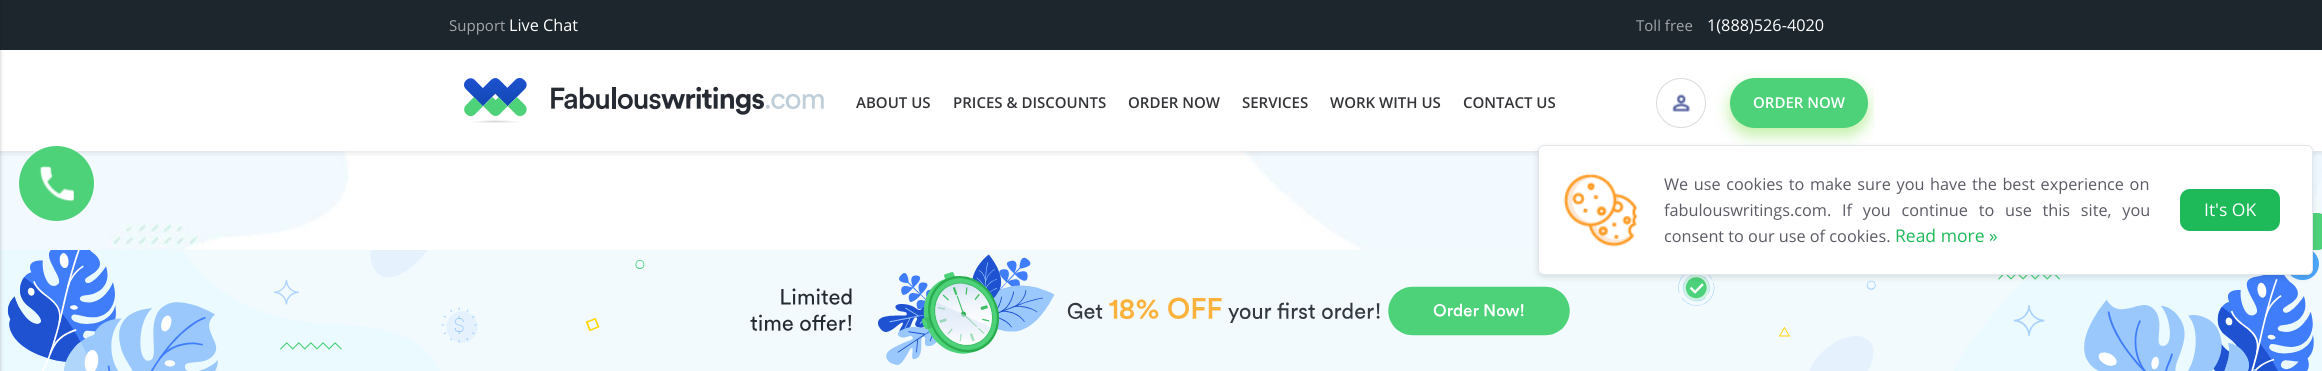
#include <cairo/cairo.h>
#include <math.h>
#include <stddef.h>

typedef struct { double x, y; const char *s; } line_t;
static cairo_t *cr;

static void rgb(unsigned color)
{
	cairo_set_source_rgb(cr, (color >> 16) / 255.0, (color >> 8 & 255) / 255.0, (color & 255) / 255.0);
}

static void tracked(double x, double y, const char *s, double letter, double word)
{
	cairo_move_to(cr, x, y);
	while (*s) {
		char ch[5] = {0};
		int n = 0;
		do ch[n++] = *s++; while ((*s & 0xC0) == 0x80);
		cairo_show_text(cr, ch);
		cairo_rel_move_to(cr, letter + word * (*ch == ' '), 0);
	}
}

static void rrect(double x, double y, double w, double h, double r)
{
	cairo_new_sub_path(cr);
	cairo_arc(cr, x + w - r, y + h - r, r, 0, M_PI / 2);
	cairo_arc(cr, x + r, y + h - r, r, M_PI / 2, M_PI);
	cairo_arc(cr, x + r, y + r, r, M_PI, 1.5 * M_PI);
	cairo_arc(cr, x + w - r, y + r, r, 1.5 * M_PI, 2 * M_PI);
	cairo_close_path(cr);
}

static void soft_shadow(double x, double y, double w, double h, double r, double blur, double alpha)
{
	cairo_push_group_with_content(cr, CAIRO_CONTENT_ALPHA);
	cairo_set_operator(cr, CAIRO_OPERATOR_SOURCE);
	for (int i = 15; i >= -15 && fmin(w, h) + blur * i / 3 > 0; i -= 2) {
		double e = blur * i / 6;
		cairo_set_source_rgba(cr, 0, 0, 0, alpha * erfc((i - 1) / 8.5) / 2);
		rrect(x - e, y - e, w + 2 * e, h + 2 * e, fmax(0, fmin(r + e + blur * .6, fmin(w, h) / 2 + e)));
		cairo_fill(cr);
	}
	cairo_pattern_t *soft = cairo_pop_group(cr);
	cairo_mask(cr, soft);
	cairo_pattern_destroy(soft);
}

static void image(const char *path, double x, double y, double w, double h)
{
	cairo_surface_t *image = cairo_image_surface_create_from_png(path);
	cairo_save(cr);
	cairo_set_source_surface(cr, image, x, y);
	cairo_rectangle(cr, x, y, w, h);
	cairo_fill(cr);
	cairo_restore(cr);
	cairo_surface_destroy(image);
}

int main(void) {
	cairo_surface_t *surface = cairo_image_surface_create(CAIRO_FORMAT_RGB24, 2322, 371);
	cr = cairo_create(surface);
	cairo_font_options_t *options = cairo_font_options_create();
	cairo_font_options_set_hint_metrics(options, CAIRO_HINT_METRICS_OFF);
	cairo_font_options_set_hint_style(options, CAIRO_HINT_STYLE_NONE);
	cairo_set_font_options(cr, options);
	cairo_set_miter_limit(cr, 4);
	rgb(0xffffff);
	cairo_paint(cr);
	image("img/5.png", 0, 151, 2322, 99);
	cairo_save(cr);
	cairo_rectangle(cr, 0, 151, 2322, 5);
	cairo_clip(cr);
	rgb(0x000000);
	soft_shadow(0, 1, 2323, 152, 0, 3, 0.1);
	cairo_restore(cr);
	rgb(0x1d262d);
	cairo_rectangle(cr, 0, 0, 2322, 50);
	cairo_fill(cr);
	rgb(0xffffff);
	soft_shadow(2098, 213, 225, 37, 4, 1, 0.8);
	image("img/4.png", 0, 250, 2322, 121);
	rgb(0x000000);
	soft_shadow(-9, 1, 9, 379, 0, 3, 0.12);
	soft_shadow(-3, 3, 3, 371, 0, 1, 0.14);
	image("img/1.png", 464, 78, 360, 45);
	image("img/2.png", 1672, 94, 19, 18);
	cairo_arc(cr, 1681, 103, 24.5, 0, 2 * M_PI);
	rgb(0xd8dadb);
	cairo_set_line_width(cr, 1);
	cairo_stroke(cr);
	cairo_save(cr);
	cairo_rectangle(cr, 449, 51, 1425, 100);
	cairo_clip(cr);
	rgb(0x4dd100);
	soft_shadow(1730, 85, 138, 50, 25, 7.5, 0.35);
	cairo_restore(cr);
	rgb(0x4dd179);
	rrect(1730, 78, 138, 50, 25);
	cairo_fill(cr);
	rgb(0xffffff);
	soft_shadow(19, 146, 75, 75, 37.5, 1, 0.5);
	rgb(0x4dd179);
	cairo_arc(cr, 56.5, 183.5, 37.5, 0, 2 * M_PI);
	cairo_fill(cr);
	image("img/3.png", 39, 166, 35, 36);
	rrect(2098, 213, 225, 37, 4);
	cairo_fill(cr);
	rgb(0x4da7fb);
	rrect(2286, 248, 33, 32, 16);
	cairo_fill(cr);
	rgb(0x000000);
	soft_shadow(1539, 149, 772, 127, 5, 4, 0.15);
	rgb(0xffffff);
	rrect(1538.5, 145.5, 774, 129, 5.5);
	cairo_fill_preserve(cr);
	rgb(0xe2e7eb);
	cairo_stroke(cr);
	image("img/6.png", 1563, 173, 75, 74);
	rgb(0x1eba59);
	rrect(2180, 189, 100, 42, 10);
	cairo_fill(cr);
	cairo_select_font_face(cr, "Open Sans", CAIRO_FONT_SLANT_NORMAL, CAIRO_FONT_WEIGHT_NORMAL);
	cairo_set_font_size(cr, 15);
	rgb(0xa3a6a9);
	cairo_move_to(cr, 449, 31);
	cairo_show_text(cr, "Support");
	cairo_set_font_size(cr, 16.25);
	rgb(0xffffff);
	cairo_move_to(cr, 509, 31);
	cairo_show_text(cr, "Live Chat");
	cairo_set_font_size(cr, 15);
	rgb(0xa3a6a9);
	cairo_move_to(cr, 1636, 31);
	cairo_show_text(cr, "Toll free");
	cairo_set_font_size(cr, 16.25);
	rgb(0xffffff);
	cairo_move_to(cr, 1707, 31);
	cairo_show_text(cr, "1(888)526-4020");
	cairo_select_font_face(cr, "Open Sans SemiBold", CAIRO_FONT_SLANT_NORMAL, CAIRO_FONT_WEIGHT_NORMAL);
	cairo_set_font_size(cr, 15);
	rgb(0x333538);
	{
		static const line_t items[] = {
			{856, 108, "ABOUT US"},
			{953, 108, "PRICES & DISCOUNTS"},
			{1128, 108, "ORDER NOW"},
			{1242, 108, "SERVICES"},
			{1330, 108, "WORK WITH US"},
			{1463, 108, "CONTACT US"},
		};
		for (size_t i = 0; i < sizeof items / sizeof *items; i++) {
			cairo_move_to(cr, items[i].x, items[i].y);
			cairo_show_text(cr, items[i].s);
		}
	}
	rgb(0xffffff);
	cairo_move_to(cr, 1753, 108);
	cairo_show_text(cr, "ORDER NOW");
	cairo_select_font_face(cr, "Open Sans", CAIRO_FONT_SLANT_NORMAL, CAIRO_FONT_WEIGHT_NORMAL);
	cairo_set_font_size(cr, 16.25);
	rgb(0x5b5b65);
	tracked(1664, 190, "We use cookies to make sure you have the best experience on", 0, 1.4);
	tracked(1664, 216, "fabulouswritings.com. If you continue to use this site, you", 0, 6.5);
	cairo_move_to(cr, 1664, 242);
	cairo_show_text(cr, "consent to our use of cookies.");
	cairo_set_font_size(cr, 17.5);
	rgb(0x1eba59);
	cairo_move_to(cr, 1895, 242);
	cairo_show_text(cr, "Read more »");
	rgb(0xffffff);
	cairo_move_to(cr, 2204, 216);
	cairo_show_text(cr, "It's OK");
	cairo_surface_write_to_png(surface, "page.png");
	cairo_font_options_destroy(options);
	cairo_destroy(cr);
	cairo_surface_destroy(surface);
	return 0;
}
